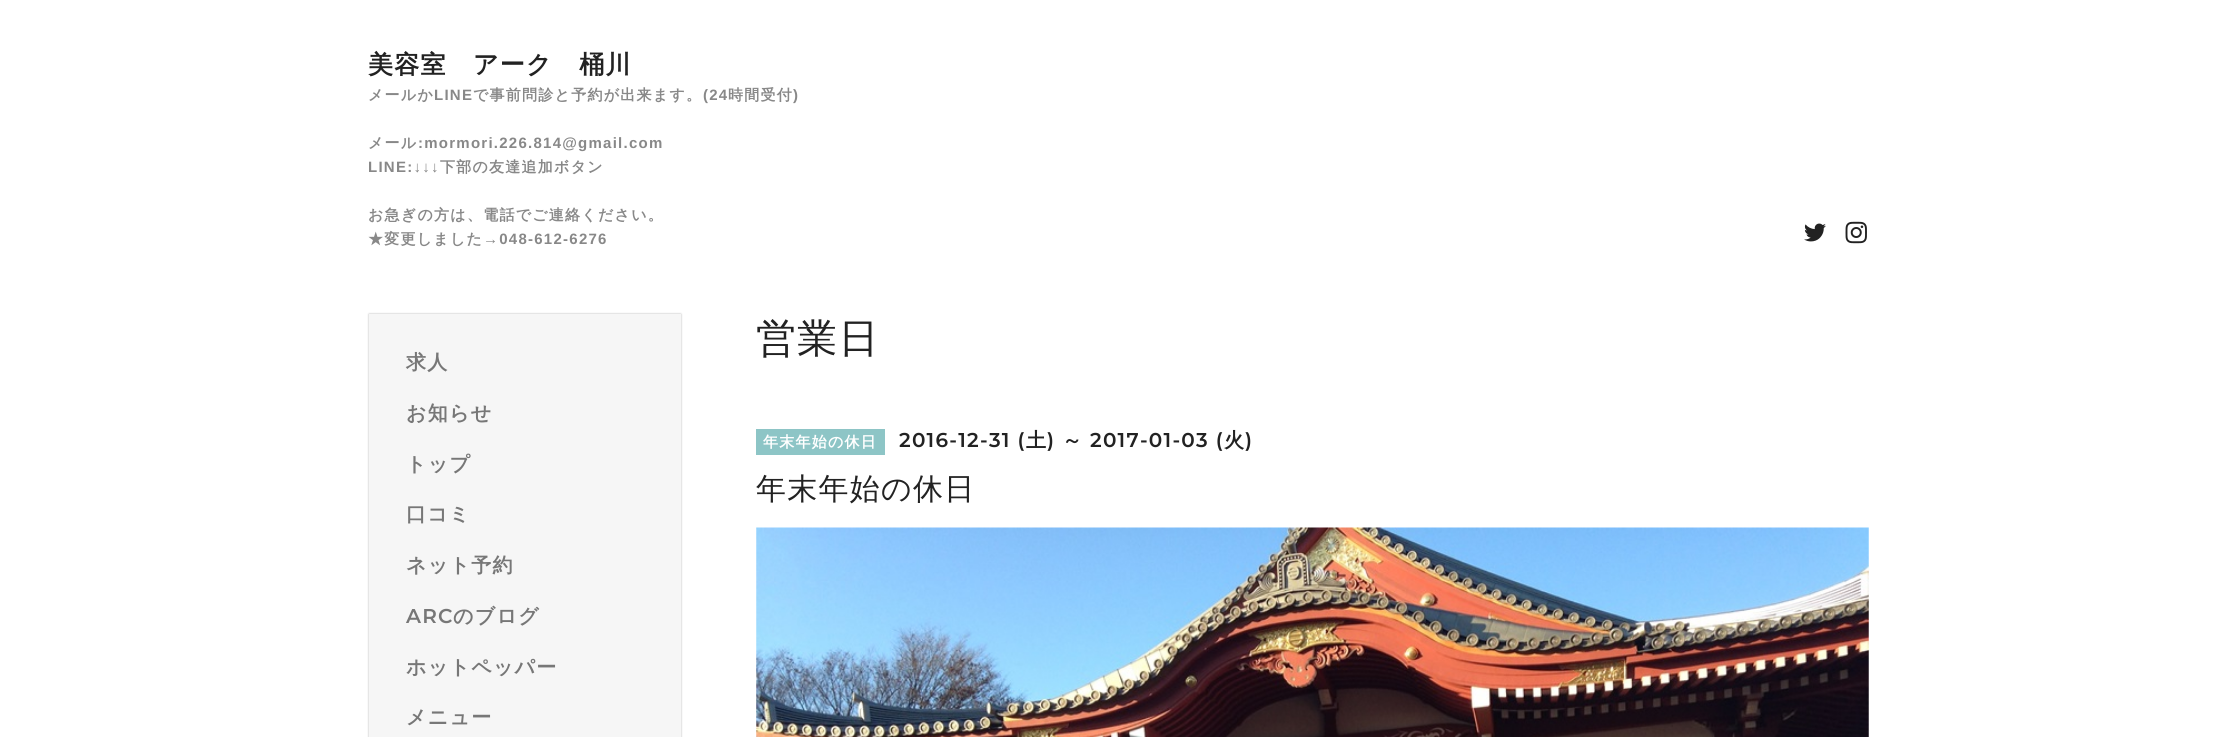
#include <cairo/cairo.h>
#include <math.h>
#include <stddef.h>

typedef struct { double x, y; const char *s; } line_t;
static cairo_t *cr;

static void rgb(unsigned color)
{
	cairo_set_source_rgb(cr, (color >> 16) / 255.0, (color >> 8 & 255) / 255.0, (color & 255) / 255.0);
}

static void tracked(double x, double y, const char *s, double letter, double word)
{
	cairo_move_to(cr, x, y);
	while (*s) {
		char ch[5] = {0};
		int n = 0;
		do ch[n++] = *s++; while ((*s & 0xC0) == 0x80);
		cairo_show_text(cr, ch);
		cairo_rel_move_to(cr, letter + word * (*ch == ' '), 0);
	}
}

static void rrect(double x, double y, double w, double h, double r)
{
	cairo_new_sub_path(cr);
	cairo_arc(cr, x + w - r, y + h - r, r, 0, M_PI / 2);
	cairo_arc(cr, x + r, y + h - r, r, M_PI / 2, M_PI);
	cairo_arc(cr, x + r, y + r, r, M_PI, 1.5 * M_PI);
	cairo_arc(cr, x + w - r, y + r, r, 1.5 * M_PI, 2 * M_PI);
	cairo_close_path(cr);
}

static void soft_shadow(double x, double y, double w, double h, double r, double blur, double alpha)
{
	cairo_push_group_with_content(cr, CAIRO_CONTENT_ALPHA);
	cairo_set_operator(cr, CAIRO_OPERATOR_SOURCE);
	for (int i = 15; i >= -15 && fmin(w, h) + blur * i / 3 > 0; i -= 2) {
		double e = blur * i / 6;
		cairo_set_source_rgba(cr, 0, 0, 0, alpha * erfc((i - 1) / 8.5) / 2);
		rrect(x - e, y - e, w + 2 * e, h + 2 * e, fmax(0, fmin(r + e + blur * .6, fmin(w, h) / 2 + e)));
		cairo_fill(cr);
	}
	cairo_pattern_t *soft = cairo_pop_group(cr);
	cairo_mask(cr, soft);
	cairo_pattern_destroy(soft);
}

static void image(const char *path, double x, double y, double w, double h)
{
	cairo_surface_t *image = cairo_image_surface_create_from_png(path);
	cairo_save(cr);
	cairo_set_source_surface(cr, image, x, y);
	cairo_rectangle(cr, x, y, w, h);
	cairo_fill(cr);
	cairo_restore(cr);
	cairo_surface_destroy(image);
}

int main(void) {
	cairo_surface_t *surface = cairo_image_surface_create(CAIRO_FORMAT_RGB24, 2236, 737);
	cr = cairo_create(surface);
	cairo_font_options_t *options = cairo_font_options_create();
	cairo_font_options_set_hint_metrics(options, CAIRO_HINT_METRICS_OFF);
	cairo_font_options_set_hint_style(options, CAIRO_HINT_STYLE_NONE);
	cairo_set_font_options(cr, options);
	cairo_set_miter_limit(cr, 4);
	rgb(0xffffff);
	cairo_paint(cr);
	image("img/1.png", 1804, 223, 22, 19);
	image("img/2.png", 1845, 221, 22, 23);
	rgb(0x000000);
	soft_shadow(369, 314, 312, 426, 0, 1, 0.3);
	rgb(0xf6f6f6);
	cairo_rectangle(cr, 369, 314, 312, 423);
	cairo_fill(cr);
	rgb(0x8dc5c6);
	cairo_rectangle(cr, 756, 429, 129, 26);
	cairo_fill(cr);
	image("img/3.png", 756, 527, 1113, 210);
	cairo_select_font_face(cr, "WenQuanYi Zen Hei", CAIRO_FONT_SLANT_NORMAL, CAIRO_FONT_WEIGHT_BOLD);
	cairo_set_font_size(cr, 25);
	rgb(0x222222);
	tracked(368, 73, "美容室　アーク　桶川", 1.25, 0);
	cairo_set_font_size(cr, 15);
	rgb(0x888888);
	tracked(368, 100, "メールか", 1.25, 0);
	cairo_select_font_face(cr, "Liberation Sans", CAIRO_FONT_SLANT_NORMAL, CAIRO_FONT_WEIGHT_BOLD);
	tracked(434, 100, "LINE", 1.25, 0);
	cairo_select_font_face(cr, "WenQuanYi Zen Hei", CAIRO_FONT_SLANT_NORMAL, CAIRO_FONT_WEIGHT_BOLD);
	tracked(473, 100, "で事前問診と予約が出来ます。", 1.25, 0);
	cairo_select_font_face(cr, "Liberation Sans", CAIRO_FONT_SLANT_NORMAL, CAIRO_FONT_WEIGHT_BOLD);
	tracked(703, 100, "(24", 1.25, 0);
	cairo_select_font_face(cr, "WenQuanYi Zen Hei", CAIRO_FONT_SLANT_NORMAL, CAIRO_FONT_WEIGHT_BOLD);
	tracked(728, 100, "時間受付", 1.25, 0);
	cairo_select_font_face(cr, "Liberation Sans", CAIRO_FONT_SLANT_NORMAL, CAIRO_FONT_WEIGHT_BOLD);
	tracked(793, 100, ")", 1.25, 0);
	cairo_select_font_face(cr, "WenQuanYi Zen Hei", CAIRO_FONT_SLANT_NORMAL, CAIRO_FONT_WEIGHT_BOLD);
	tracked(368, 148, "メール", 1.25, 0);
	cairo_select_font_face(cr, "Liberation Sans", CAIRO_FONT_SLANT_NORMAL, CAIRO_FONT_WEIGHT_BOLD);
	tracked(418, 148, ":mormori.226.814@gmail.com", 1.25, 0);
	tracked(368, 172, "LINE:↓↓↓", 1.25, 0);
	cairo_select_font_face(cr, "WenQuanYi Zen Hei", CAIRO_FONT_SLANT_NORMAL, CAIRO_FONT_WEIGHT_BOLD);
	{
		static const line_t items[] = {
			{440, 172, "下部の友達追加ボタン"},
			{368, 220, "お急ぎの方は、電話でご連絡ください。"},
			{368, 244, "★変更しました"},
		};
		for (size_t i = 0; i < sizeof items / sizeof *items; i++) {
			tracked(items[i].x, items[i].y, items[i].s, 1.25, 0);
		}
	}
	cairo_select_font_face(cr, "Liberation Sans", CAIRO_FONT_SLANT_NORMAL, CAIRO_FONT_WEIGHT_BOLD);
	tracked(483, 244, "→048-612-6276", 1.25, 0);
	cairo_select_font_face(cr, "WenQuanYi Zen Hei", CAIRO_FONT_SLANT_NORMAL, CAIRO_FONT_WEIGHT_BOLD);
	cairo_set_font_size(cr, 20);
	rgb(0x777777);
	{
		static const line_t items[] = {
			{406, 369, "求人"},
			{406, 420, "お知らせ"},
			{406, 471, "トップ"},
			{406, 521, "口コミ"},
			{406, 572, "ネット予約"},
		};
		for (size_t i = 0; i < sizeof items / sizeof *items; i++) {
			tracked(items[i].x, items[i].y, items[i].s, 1.25, 0);
		}
	}
	cairo_select_font_face(cr, "Montserrat SemiBold", CAIRO_FONT_SLANT_NORMAL, CAIRO_FONT_WEIGHT_NORMAL);
	tracked(406, 623, "ARC", 1.25, 0);
	cairo_select_font_face(cr, "WenQuanYi Zen Hei", CAIRO_FONT_SLANT_NORMAL, CAIRO_FONT_WEIGHT_BOLD);
	{
		static const line_t items[] = {
			{453, 623, "のブログ"},
			{406, 674, "ホットペッパー"},
			{406, 724, "メニュー"},
		};
		for (size_t i = 0; i < sizeof items / sizeof *items; i++) {
			tracked(items[i].x, items[i].y, items[i].s, 1.25, 0);
		}
	}
	cairo_select_font_face(cr, "WenQuanYi Zen Hei Medium", CAIRO_FONT_SLANT_NORMAL, CAIRO_FONT_WEIGHT_NORMAL);
	cairo_set_font_size(cr, 40);
	rgb(0x222222);
	tracked(756, 352, "営業日", 1.25, 0);
	cairo_select_font_face(cr, "WenQuanYi Zen Hei", CAIRO_FONT_SLANT_NORMAL, CAIRO_FONT_WEIGHT_BOLD);
	cairo_set_font_size(cr, 15);
	rgb(0xffffff);
	tracked(763, 447, "年末年始の休日", 1.25, 0);
	cairo_select_font_face(cr, "Montserrat SemiBold", CAIRO_FONT_SLANT_NORMAL, CAIRO_FONT_WEIGHT_NORMAL);
	cairo_set_font_size(cr, 20);
	rgb(0x222222);
	tracked(899, 447, "2016-12-31 (", 1.25, 0);
	cairo_select_font_face(cr, "WenQuanYi Zen Hei", CAIRO_FONT_SLANT_NORMAL, CAIRO_FONT_WEIGHT_BOLD);
	tracked(1026, 447, "土", 1.25, 0);
	cairo_select_font_face(cr, "Montserrat SemiBold", CAIRO_FONT_SLANT_NORMAL, CAIRO_FONT_WEIGHT_NORMAL);
	tracked(1047, 447, ")", 1.25, 0);
	cairo_select_font_face(cr, "WenQuanYi Zen Hei", CAIRO_FONT_SLANT_NORMAL, CAIRO_FONT_WEIGHT_BOLD);
	tracked(1062, 447, "～", 1.25, 0);
	cairo_select_font_face(cr, "Montserrat SemiBold", CAIRO_FONT_SLANT_NORMAL, CAIRO_FONT_WEIGHT_NORMAL);
	tracked(1090, 447, "2017-01-03 (", 1.25, 0);
	cairo_select_font_face(cr, "WenQuanYi Zen Hei", CAIRO_FONT_SLANT_NORMAL, CAIRO_FONT_WEIGHT_BOLD);
	tracked(1224, 447, "火", 1.25, 0);
	cairo_select_font_face(cr, "Montserrat SemiBold", CAIRO_FONT_SLANT_NORMAL, CAIRO_FONT_WEIGHT_NORMAL);
	tracked(1245, 447, ")", 1.25, 0);
	cairo_select_font_face(cr, "WenQuanYi Zen Hei Medium", CAIRO_FONT_SLANT_NORMAL, CAIRO_FONT_WEIGHT_NORMAL);
	cairo_set_font_size(cr, 30);
	tracked(756, 499, "年末年始の休日", 1.25, 0);
	cairo_surface_write_to_png(surface, "page.png");
	cairo_font_options_destroy(options);
	cairo_destroy(cr);
	cairo_surface_destroy(surface);
	return 0;
}
